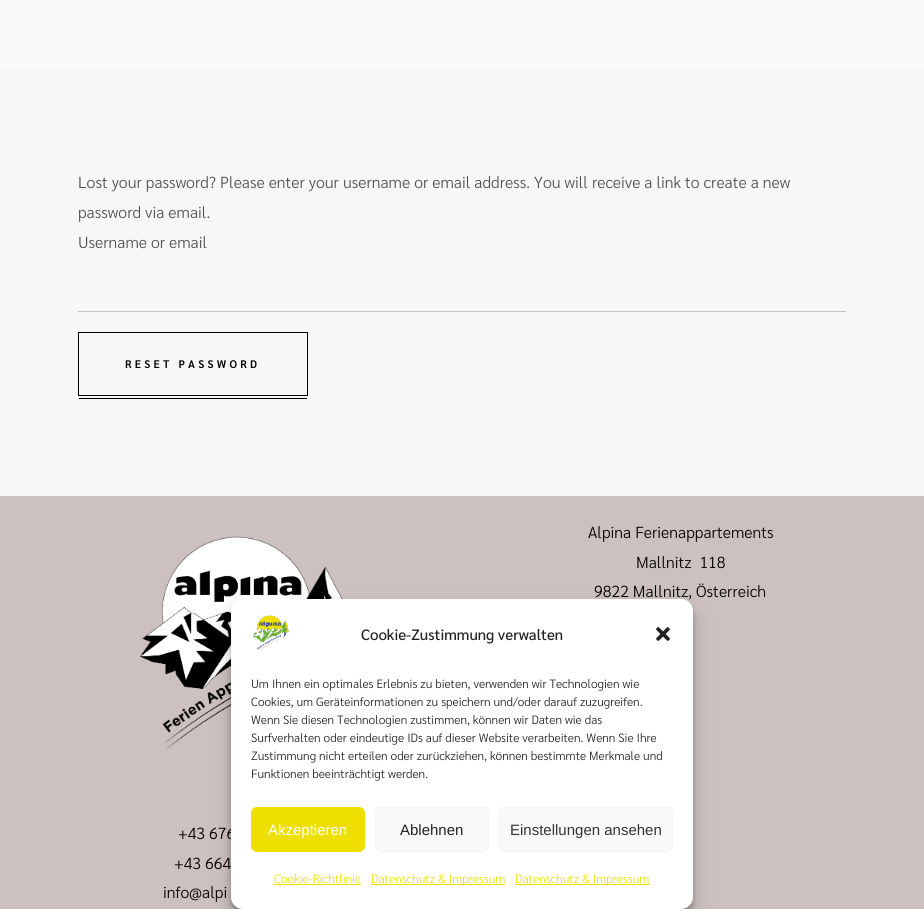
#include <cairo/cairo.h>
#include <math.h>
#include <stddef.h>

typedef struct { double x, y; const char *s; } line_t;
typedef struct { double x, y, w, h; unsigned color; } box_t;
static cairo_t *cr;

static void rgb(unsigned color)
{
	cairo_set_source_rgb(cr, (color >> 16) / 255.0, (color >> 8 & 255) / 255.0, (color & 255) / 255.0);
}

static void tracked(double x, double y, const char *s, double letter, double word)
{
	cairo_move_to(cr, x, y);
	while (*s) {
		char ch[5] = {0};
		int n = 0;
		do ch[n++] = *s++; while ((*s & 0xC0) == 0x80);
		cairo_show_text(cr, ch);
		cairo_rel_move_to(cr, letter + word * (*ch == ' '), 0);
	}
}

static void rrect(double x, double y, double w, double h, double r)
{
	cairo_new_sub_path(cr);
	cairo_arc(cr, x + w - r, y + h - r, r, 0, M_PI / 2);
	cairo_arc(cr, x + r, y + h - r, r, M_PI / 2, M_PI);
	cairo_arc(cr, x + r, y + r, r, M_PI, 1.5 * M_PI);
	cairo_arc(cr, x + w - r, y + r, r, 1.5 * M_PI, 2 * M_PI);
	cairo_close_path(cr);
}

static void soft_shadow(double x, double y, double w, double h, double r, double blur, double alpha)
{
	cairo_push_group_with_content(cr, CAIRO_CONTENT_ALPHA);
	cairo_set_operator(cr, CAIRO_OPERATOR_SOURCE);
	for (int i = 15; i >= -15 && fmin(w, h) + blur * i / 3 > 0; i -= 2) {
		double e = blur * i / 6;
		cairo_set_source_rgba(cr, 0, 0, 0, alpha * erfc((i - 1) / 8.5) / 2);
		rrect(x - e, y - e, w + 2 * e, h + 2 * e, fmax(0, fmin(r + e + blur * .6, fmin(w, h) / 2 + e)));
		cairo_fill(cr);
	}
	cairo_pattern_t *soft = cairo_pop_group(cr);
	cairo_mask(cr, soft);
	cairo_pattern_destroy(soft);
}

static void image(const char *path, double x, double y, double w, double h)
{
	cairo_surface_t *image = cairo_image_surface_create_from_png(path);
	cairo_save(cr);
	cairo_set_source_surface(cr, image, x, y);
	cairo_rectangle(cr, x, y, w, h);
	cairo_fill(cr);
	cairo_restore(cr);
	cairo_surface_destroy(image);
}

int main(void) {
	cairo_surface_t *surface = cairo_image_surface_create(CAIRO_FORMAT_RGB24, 924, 909);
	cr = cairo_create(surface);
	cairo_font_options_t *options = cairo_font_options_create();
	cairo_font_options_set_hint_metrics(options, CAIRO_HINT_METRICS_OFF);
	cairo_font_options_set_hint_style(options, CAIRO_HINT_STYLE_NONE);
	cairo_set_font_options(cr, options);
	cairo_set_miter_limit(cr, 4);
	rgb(0xf7f7f7);
	cairo_paint(cr);
	rgb(0xfafafa);
	cairo_rectangle(cr, 0, 0, 924, 67);
	cairo_fill(cr);
	rgb(0xc4c4c4);
	cairo_rectangle(cr, 78, 311, 768, 1);
	cairo_fill(cr);
	cairo_rectangle(cr, 78.5, 332.5, 229, 63);
	rgb(0x000000);
	cairo_set_line_width(cr, 1);
	cairo_stroke(cr);
	{
		static const box_t items[] = {
			{79, 398, 228, 1, 0x000000},
			{0, 497, 924, 412, 0xccc1be},
			{0, 496, 924, 1, 0xc4c4c4},
		};
		for (size_t i = 0; i < sizeof items / sizeof *items; i++) {
			rgb(items[i].color);
			cairo_rectangle(cr, items[i].x, items[i].y, items[i].w, items[i].h);
			cairo_fill(cr);
		}
	}
	image("img/1.png", 140, 536, 203, 213);
	rgb(0x000000);
	soft_shadow(231, 605, 462, 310, 12, 3, 0.23);
	soft_shadow(231, 609, 462, 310, 12, 10, 0.19);
	cairo_select_font_face(cr, "Sarabun Light", CAIRO_FONT_SLANT_NORMAL, CAIRO_FONT_WEIGHT_NORMAL);
	cairo_set_font_size(cr, 16);
	rgb(0x505050);
	{
		static const line_t items[] = {
			{78, 188, "Lost your password? Please enter your username or email address. You will receive a link to create a new"},
			{78, 218, "password via email."},
			{78, 248, "Username or email"},
		};
		for (size_t i = 0; i < sizeof items / sizeof *items; i++) {
			cairo_move_to(cr, items[i].x, items[i].y);
			cairo_show_text(cr, items[i].s);
		}
	}
	cairo_select_font_face(cr, "Sarabun SemiBold", CAIRO_FONT_SLANT_NORMAL, CAIRO_FONT_WEIGHT_NORMAL);
	cairo_set_font_size(cr, 11);
	rgb(0x000000);
	tracked(125, 368, "RESET PASSWORD", 3.25, 0);
	cairo_select_font_face(cr, "Sarabun Light", CAIRO_FONT_SLANT_NORMAL, CAIRO_FONT_WEIGHT_NORMAL);
	cairo_set_font_size(cr, 16);
	{
		static const line_t items[] = {
			{588, 538, "Alpina Ferienappartements"},
			{636, 568, "Mallnitz  118"},
			{594, 597, "9822 Mallnitz, Österreich"},
			{178, 839, "+43 676"},
			{174, 869, "+43 664"},
			{163, 898, "info@alpi"},
		};
		for (size_t i = 0; i < sizeof items / sizeof *items; i++) {
			cairo_move_to(cr, items[i].x, items[i].y);
			cairo_show_text(cr, items[i].s);
		}
	}
	rgb(0xffffff);
	rrect(231, 599, 462, 310, 12);
	cairo_fill(cr);
	image("img/2.png", 252, 615, 38, 37);
	cairo_select_font_face(cr, "Sarabun Medium", CAIRO_FONT_SLANT_NORMAL, CAIRO_FONT_WEIGHT_NORMAL);
	cairo_set_font_size(cr, 15);
	rgb(0x222222);
	cairo_move_to(cr, 361, 640);
	cairo_show_text(cr, "Cookie-Zustimmung verwalten");
	image("img/3.png", 656, 627, 14, 14);
	cairo_select_font_face(cr, "Sarabun Light", CAIRO_FONT_SLANT_NORMAL, CAIRO_FONT_WEIGHT_NORMAL);
	cairo_set_font_size(cr, 12);
	{
		static const line_t items[] = {
			{251, 688, "Um Ihnen ein optimales Erlebnis zu bieten, verwenden wir Technologien wie"},
			{251, 706, "Cookies, um Geräteinformationen zu speichern und/oder darauf zuzugreifen."},
			{251, 724, "Wenn Sie diesen Technologien zustimmen, können wir Daten wie das"},
			{251, 742, "Surfverhalten oder eindeutige IDs auf dieser Website verarbeiten. Wenn Sie Ihre"},
			{251, 760, "Zustimmung nicht erteilen oder zurückziehen, können bestimmte Merkmale und"},
			{251, 778, "Funktionen beeinträchtigt werden."},
		};
		for (size_t i = 0; i < sizeof items / sizeof *items; i++) {
			cairo_move_to(cr, items[i].x, items[i].y);
			cairo_show_text(cr, items[i].s);
		}
	}
	rgb(0xefdf00);
	rrect(251.5, 807.5, 113, 44, 5.5);
	cairo_fill_preserve(cr);
	cairo_stroke(cr);
	cairo_select_font_face(cr, "Liberation Sans", CAIRO_FONT_SLANT_NORMAL, CAIRO_FONT_WEIGHT_NORMAL);
	cairo_set_font_size(cr, 15);
	rgb(0xffffff);
	cairo_move_to(cr, 268, 835);
	cairo_show_text(cr, "Akzeptieren");
	rgb(0xf9f9f9);
	rrect(375.5, 807.5, 113, 44, 5.5);
	cairo_fill_preserve(cr);
	rgb(0xf2f2f2);
	cairo_stroke(cr);
	rgb(0x222222);
	cairo_move_to(cr, 400, 835);
	cairo_show_text(cr, "Ablehnen");
	rgb(0xf9f9f9);
	rrect(499.5, 807.5, 173, 44, 5.5);
	cairo_fill_preserve(cr);
	rgb(0xf2f2f2);
	cairo_stroke(cr);
	rgb(0x333333);
	cairo_move_to(cr, 510, 835);
	cairo_show_text(cr, "Einstellungen ansehen");
	cairo_select_font_face(cr, "Sarabun Light", CAIRO_FONT_SLANT_NORMAL, CAIRO_FONT_WEIGHT_NORMAL);
	cairo_set_font_size(cr, 12);
	rgb(0xefdf00);
	cairo_move_to(cr, 274, 883);
	cairo_show_text(cr, "Cookie-Richtlinie");
	cairo_rectangle(cr, 274, 884, 87, 1);
	cairo_fill(cr);
	cairo_rectangle(cr, 371, 884, 134, 1);
	cairo_fill(cr);
	cairo_move_to(cr, 371, 883);
	cairo_show_text(cr, "Datenschutz & Impressum");
	cairo_rectangle(cr, 515, 884, 135, 1);
	cairo_fill(cr);
	cairo_move_to(cr, 515, 883);
	cairo_show_text(cr, "Datenschutz & Impressum");
	cairo_surface_write_to_png(surface, "page.png");
	cairo_font_options_destroy(options);
	cairo_destroy(cr);
	cairo_surface_destroy(surface);
	return 0;
}
